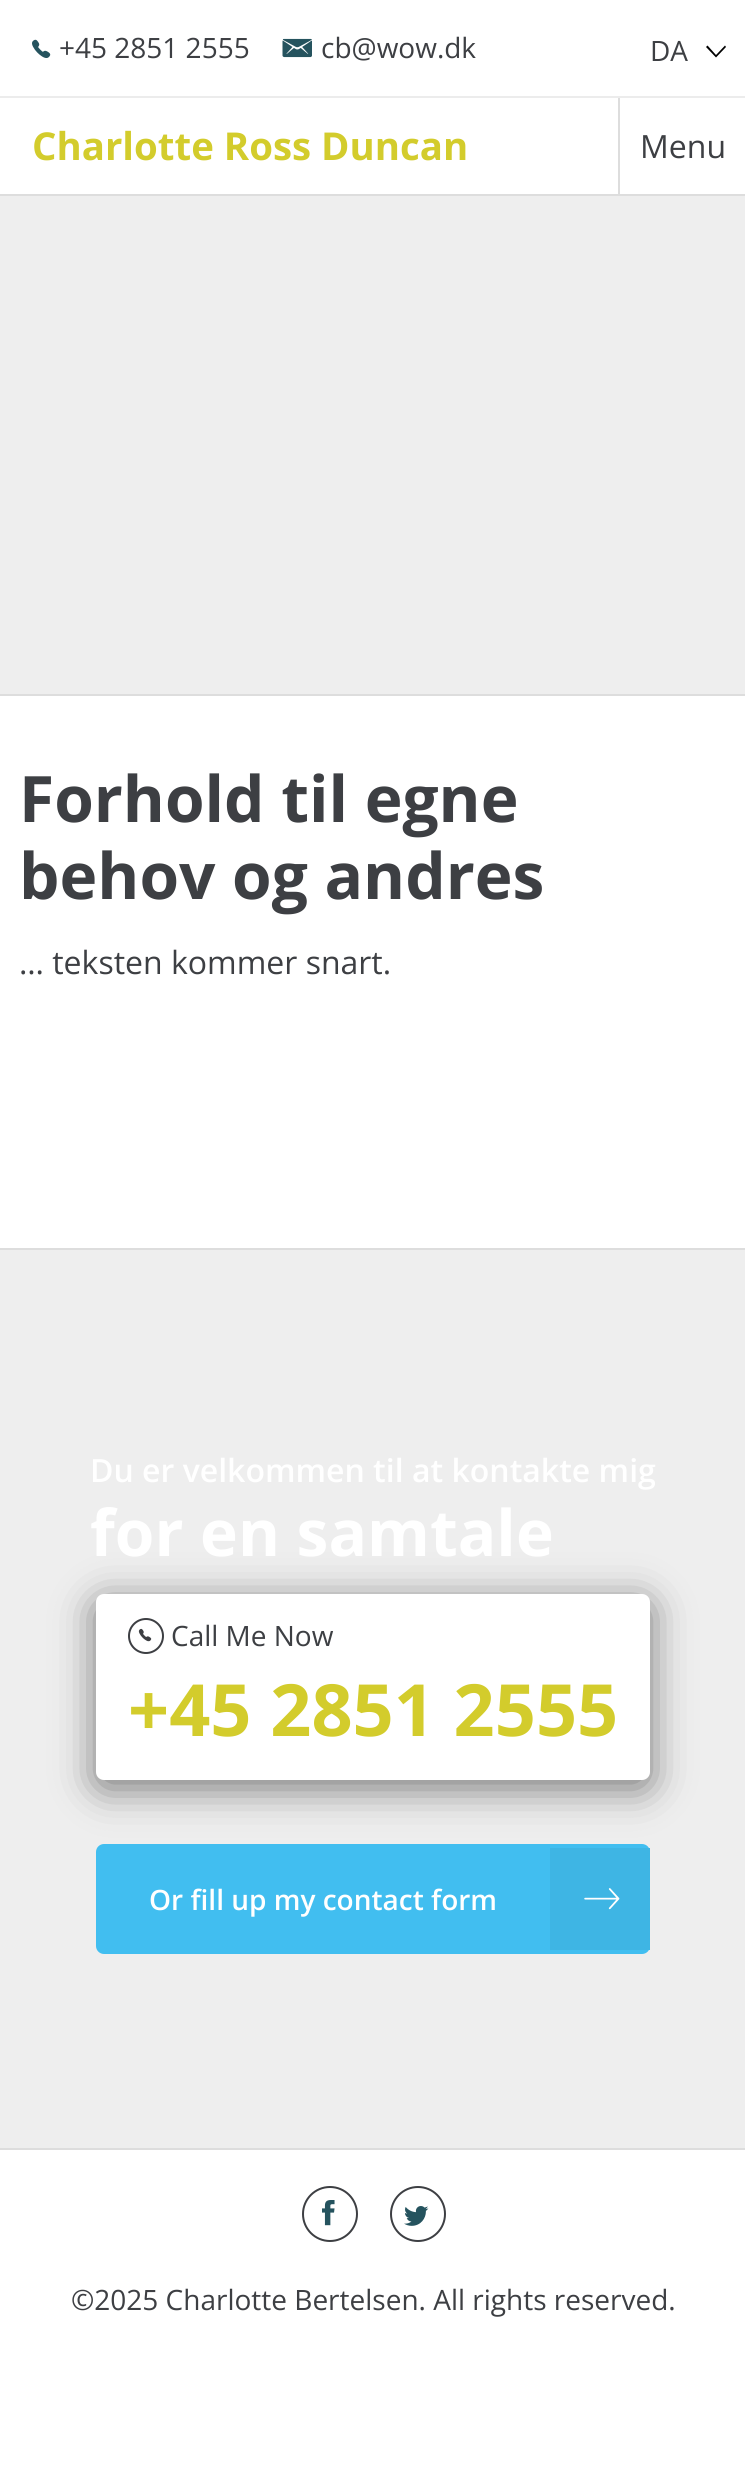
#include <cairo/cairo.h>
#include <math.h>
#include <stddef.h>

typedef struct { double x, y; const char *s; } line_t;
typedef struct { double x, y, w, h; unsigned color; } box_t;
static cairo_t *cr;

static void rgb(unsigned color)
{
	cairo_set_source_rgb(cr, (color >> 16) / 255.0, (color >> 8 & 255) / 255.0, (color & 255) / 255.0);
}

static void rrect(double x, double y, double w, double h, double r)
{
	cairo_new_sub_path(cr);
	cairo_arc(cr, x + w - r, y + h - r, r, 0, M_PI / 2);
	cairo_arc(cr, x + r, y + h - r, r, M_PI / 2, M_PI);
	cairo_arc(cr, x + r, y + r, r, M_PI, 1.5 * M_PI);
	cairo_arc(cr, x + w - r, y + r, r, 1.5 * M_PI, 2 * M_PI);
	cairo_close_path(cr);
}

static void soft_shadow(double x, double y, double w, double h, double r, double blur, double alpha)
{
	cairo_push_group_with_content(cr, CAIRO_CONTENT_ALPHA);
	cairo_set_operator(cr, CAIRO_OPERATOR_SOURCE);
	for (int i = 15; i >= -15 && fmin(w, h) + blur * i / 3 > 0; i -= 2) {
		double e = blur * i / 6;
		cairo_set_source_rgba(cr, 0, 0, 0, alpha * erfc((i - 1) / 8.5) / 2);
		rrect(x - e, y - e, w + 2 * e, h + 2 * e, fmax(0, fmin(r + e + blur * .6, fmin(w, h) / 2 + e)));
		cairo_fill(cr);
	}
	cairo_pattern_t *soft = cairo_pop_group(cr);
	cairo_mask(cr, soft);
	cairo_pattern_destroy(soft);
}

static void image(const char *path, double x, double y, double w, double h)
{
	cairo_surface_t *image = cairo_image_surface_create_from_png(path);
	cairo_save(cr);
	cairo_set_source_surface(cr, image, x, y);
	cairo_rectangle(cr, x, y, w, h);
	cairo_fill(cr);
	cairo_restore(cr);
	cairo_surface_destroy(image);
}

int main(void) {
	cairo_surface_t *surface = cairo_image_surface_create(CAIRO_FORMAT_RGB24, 745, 2469);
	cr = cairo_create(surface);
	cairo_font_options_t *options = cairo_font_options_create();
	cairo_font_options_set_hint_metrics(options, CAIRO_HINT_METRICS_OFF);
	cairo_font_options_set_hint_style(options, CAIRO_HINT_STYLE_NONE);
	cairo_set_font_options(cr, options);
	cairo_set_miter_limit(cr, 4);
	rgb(0xffffff);
	cairo_paint(cr);
	rgb(0xececec);
	cairo_rectangle(cr, 0, 96, 745, 2);
	cairo_fill(cr);
	image("img/1.png", 32, 39, 19, 19);
	image("img/2.png", 282, 38, 30, 20);
	rgb(0x000000);
	cairo_new_path(cr);
	cairo_move_to(cr, 725, 45.5);
	cairo_line_to(cr, 726, 47);
	cairo_line_to(cr, 716, 57.5);
	cairo_line_to(cr, 706, 47);
	cairo_line_to(cr, 707.5, 45.5);
	cairo_line_to(cr, 716, 55);
	cairo_close_path(cr);
	cairo_fill(cr);
	{
		static const box_t items[] = {
			{0, 194, 745, 2, 0xdddddd},
			{618, 98, 2, 96, 0xdddddd},
			{0, 196, 745, 498, 0xeeeeee},
			{0, 694, 745, 2, 0xdddddd},
			{0, 1248, 745, 2, 0xdddddd},
			{0, 1250, 745, 898, 0xeeeeee},
			{0, 2148, 745, 2, 0xdddddd},
		};
		for (size_t i = 0; i < sizeof items / sizeof *items; i++) {
			rgb(items[i].color);
			cairo_rectangle(cr, items[i].x, items[i].y, items[i].w, items[i].h);
			cairo_fill(cr);
		}
	}
	rgb(0x000000);
	soft_shadow(96, 1602, 554, 186, 8, 20, 0.5);
	rgb(0xffffff);
	rrect(96, 1594, 554, 186, 8);
	cairo_fill(cr);
	cairo_arc(cr, 146, 1636, 17, 0, 2 * M_PI);
	rgb(0x3d3f43);
	cairo_stroke(cr);
	image("img/3.png", 138, 1628, 14, 14);
	rgb(0x41bef0);
	rrect(96, 1844, 554, 110, 8);
	cairo_fill(cr);
	rgb(0x3eb5e4);
	cairo_rectangle(cr, 550, 1848, 100, 102);
	cairo_fill(cr);
	image("img/4.png", 584, 1888, 36, 22);
	cairo_arc(cr, 330, 2214, 27, 0, 2 * M_PI);
	rgb(0x3d3f43);
	cairo_stroke(cr);
	image("img/5.png", 322, 2200, 13, 26);
	cairo_arc(cr, 418, 2214, 27, 0, 2 * M_PI);
	cairo_stroke(cr);
	image("img/6.png", 404, 2206, 25, 20);
	cairo_select_font_face(cr, "Open Sans", CAIRO_FONT_SLANT_NORMAL, CAIRO_FONT_WEIGHT_NORMAL);
	cairo_set_font_size(cr, 28);
	{
		static const line_t items[] = {
			{59, 58, "+45 2851 2555"},
			{321, 58, "cb@wow.dk"},
			{650, 61, "DA"},
		};
		for (size_t i = 0; i < sizeof items / sizeof *items; i++) {
			cairo_move_to(cr, items[i].x, items[i].y);
			cairo_show_text(cr, items[i].s);
		}
	}
	cairo_select_font_face(cr, "Open Sans", CAIRO_FONT_SLANT_NORMAL, CAIRO_FONT_WEIGHT_BOLD);
	cairo_set_font_size(cr, 38.4);
	rgb(0xd3cc2c);
	cairo_move_to(cr, 32, 160);
	cairo_show_text(cr, "Charlotte Ross Duncan");
	cairo_select_font_face(cr, "Open Sans", CAIRO_FONT_SLANT_NORMAL, CAIRO_FONT_WEIGHT_NORMAL);
	cairo_set_font_size(cr, 32);
	rgb(0x3d3f43);
	cairo_move_to(cr, 640, 158);
	cairo_show_text(cr, "Menu");
	cairo_select_font_face(cr, "Open Sans", CAIRO_FONT_SLANT_NORMAL, CAIRO_FONT_WEIGHT_BOLD);
	cairo_set_font_size(cr, 64);
	cairo_move_to(cr, 19, 822);
	cairo_show_text(cr, "Forhold til egne");
	cairo_move_to(cr, 19, 899);
	cairo_show_text(cr, "behov og andres");
	cairo_select_font_face(cr, "Open Sans", CAIRO_FONT_SLANT_NORMAL, CAIRO_FONT_WEIGHT_NORMAL);
	cairo_set_font_size(cr, 32);
	cairo_move_to(cr, 19, 974);
	cairo_show_text(cr, "… teksten kommer snart.");
	cairo_select_font_face(cr, "Open Sans SemiBold", CAIRO_FONT_SLANT_NORMAL, CAIRO_FONT_WEIGHT_NORMAL);
	rgb(0xffffff);
	cairo_move_to(cr, 90, 1482);
	cairo_show_text(cr, "Du er velkommen til at kontakte mig");
	cairo_select_font_face(cr, "Open Sans", CAIRO_FONT_SLANT_NORMAL, CAIRO_FONT_WEIGHT_BOLD);
	cairo_set_font_size(cr, 64);
	cairo_move_to(cr, 90, 1556);
	cairo_show_text(cr, "for en samtale");
	cairo_select_font_face(cr, "Open Sans", CAIRO_FONT_SLANT_NORMAL, CAIRO_FONT_WEIGHT_NORMAL);
	cairo_set_font_size(cr, 28);
	rgb(0x3d3f43);
	cairo_move_to(cr, 171, 1646);
	cairo_show_text(cr, "Call Me Now");
	cairo_select_font_face(cr, "Open Sans", CAIRO_FONT_SLANT_NORMAL, CAIRO_FONT_WEIGHT_BOLD);
	cairo_set_font_size(cr, 72);
	rgb(0xd3cc2c);
	cairo_move_to(cr, 128, 1736);
	cairo_show_text(cr, "+45 2851 2555");
	cairo_select_font_face(cr, "Open Sans SemiBold", CAIRO_FONT_SLANT_NORMAL, CAIRO_FONT_WEIGHT_NORMAL);
	cairo_set_font_size(cr, 28);
	rgb(0xffffff);
	cairo_move_to(cr, 149, 1910);
	cairo_show_text(cr, "Or fill up my contact form");
	cairo_select_font_face(cr, "Open Sans", CAIRO_FONT_SLANT_NORMAL, CAIRO_FONT_WEIGHT_NORMAL);
	rgb(0x3d3f43);
	cairo_move_to(cr, 71, 2310);
	cairo_show_text(cr, "©2025 Charlotte Bertelsen. All rights reserved.");
	cairo_surface_write_to_png(surface, "page.png");
	cairo_font_options_destroy(options);
	cairo_destroy(cr);
	cairo_surface_destroy(surface);
	return 0;
}
